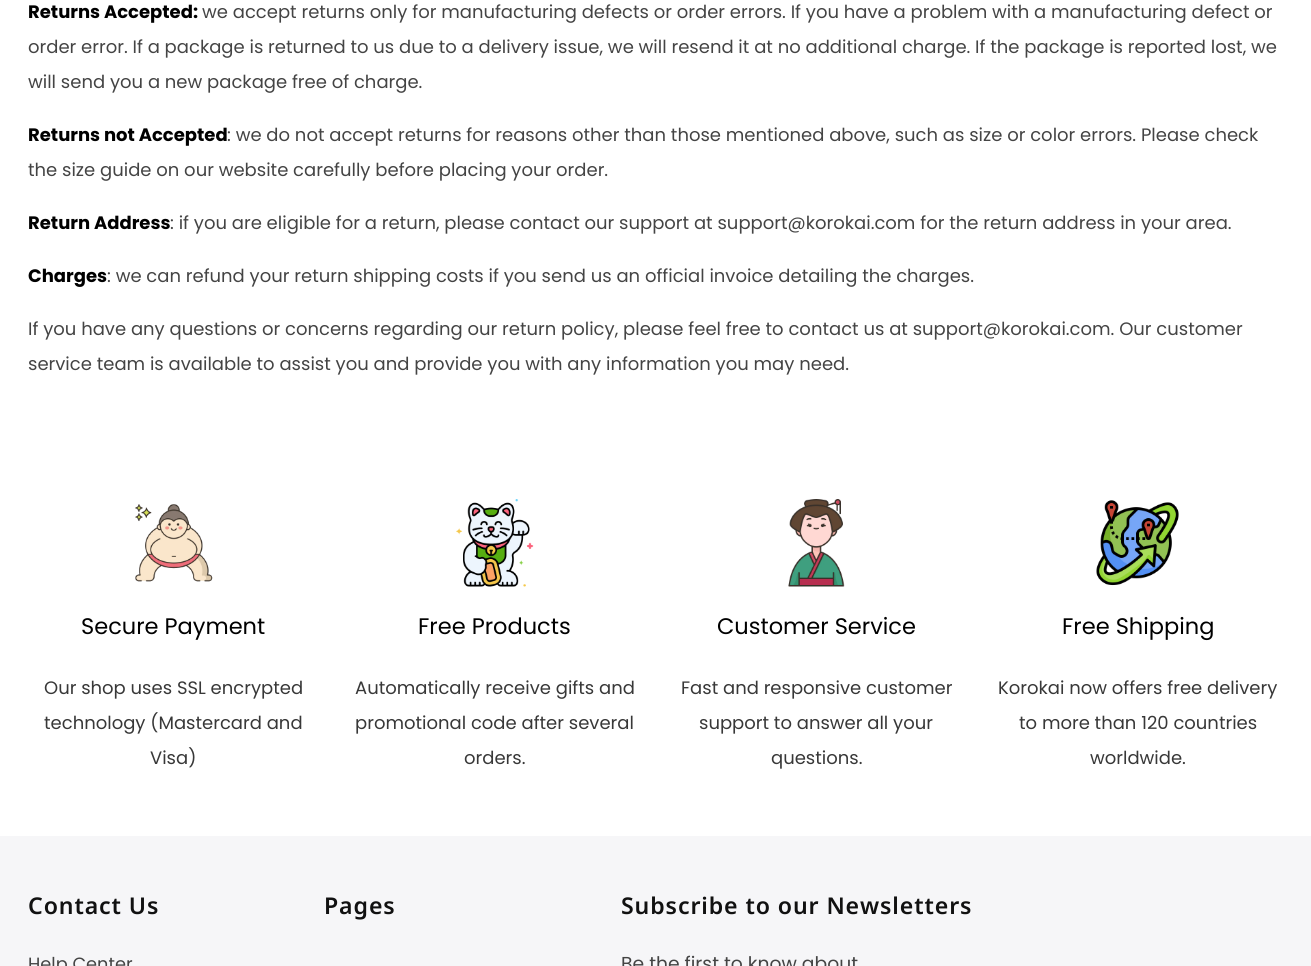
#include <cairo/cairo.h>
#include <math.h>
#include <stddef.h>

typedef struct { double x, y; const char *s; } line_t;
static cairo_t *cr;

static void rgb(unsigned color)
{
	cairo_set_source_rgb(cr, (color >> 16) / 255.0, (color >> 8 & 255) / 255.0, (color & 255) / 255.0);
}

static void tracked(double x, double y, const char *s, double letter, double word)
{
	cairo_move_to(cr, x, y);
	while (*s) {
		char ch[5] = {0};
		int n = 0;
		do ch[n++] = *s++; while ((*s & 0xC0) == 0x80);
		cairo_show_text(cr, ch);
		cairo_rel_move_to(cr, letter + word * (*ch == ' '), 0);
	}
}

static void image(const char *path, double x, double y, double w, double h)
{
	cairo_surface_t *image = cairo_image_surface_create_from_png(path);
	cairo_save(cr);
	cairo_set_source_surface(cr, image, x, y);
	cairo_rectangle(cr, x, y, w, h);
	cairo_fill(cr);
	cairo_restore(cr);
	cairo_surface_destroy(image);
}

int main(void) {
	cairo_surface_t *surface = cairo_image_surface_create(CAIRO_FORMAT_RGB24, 1311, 966);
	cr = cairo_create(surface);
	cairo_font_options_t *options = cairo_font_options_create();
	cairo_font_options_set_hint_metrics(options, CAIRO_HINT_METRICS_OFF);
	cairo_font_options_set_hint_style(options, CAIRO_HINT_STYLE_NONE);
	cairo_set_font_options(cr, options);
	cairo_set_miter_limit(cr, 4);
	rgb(0xffffff);
	cairo_paint(cr);
	image("img/1.png", 135, 504, 78, 78);
	image("img/2.png", 456, 499, 78, 88);
	image("img/3.png", 788, 499, 57, 88);
	image("img/4.png", 1096, 500, 83, 86);
	rgb(0xf6f6f8);
	cairo_rectangle(cr, 0, 836, 1311, 130);
	cairo_fill(cr);
	cairo_select_font_face(cr, "Poppins", CAIRO_FONT_SLANT_NORMAL, CAIRO_FONT_WEIGHT_BOLD);
	cairo_set_font_size(cr, 18);
	rgb(0x000000);
	cairo_move_to(cr, 28, 18);
	cairo_show_text(cr, "Returns Accepted:");
	cairo_select_font_face(cr, "Poppins", CAIRO_FONT_SLANT_NORMAL, CAIRO_FONT_WEIGHT_NORMAL);
	rgb(0x444444);
	{
		static const line_t items[] = {
			{202, 18, "we accept returns only for manufacturing defects or order errors. If you have a problem with a manufacturing defect or"},
			{28, 53, "order error. If a package is returned to us due to a delivery issue, we will resend it at no additional charge. If the package is reported lost, we"},
			{28, 88, "will send you a new package free of charge."},
		};
		for (size_t i = 0; i < sizeof items / sizeof *items; i++) {
			cairo_move_to(cr, items[i].x, items[i].y);
			cairo_show_text(cr, items[i].s);
		}
	}
	cairo_select_font_face(cr, "Poppins", CAIRO_FONT_SLANT_NORMAL, CAIRO_FONT_WEIGHT_BOLD);
	rgb(0x000000);
	cairo_move_to(cr, 28, 141);
	cairo_show_text(cr, "Returns not Accepted");
	cairo_select_font_face(cr, "Poppins", CAIRO_FONT_SLANT_NORMAL, CAIRO_FONT_WEIGHT_NORMAL);
	rgb(0x444444);
	cairo_move_to(cr, 227, 141);
	cairo_show_text(cr, ": we do not accept returns for reasons other than those mentioned above, such as size or color errors. Please check");
	cairo_move_to(cr, 28, 176);
	cairo_show_text(cr, "the size guide on our website carefully before placing your order.");
	cairo_select_font_face(cr, "Poppins", CAIRO_FONT_SLANT_NORMAL, CAIRO_FONT_WEIGHT_BOLD);
	rgb(0x000000);
	cairo_move_to(cr, 28, 229);
	cairo_show_text(cr, "Return Address");
	cairo_select_font_face(cr, "Poppins", CAIRO_FONT_SLANT_NORMAL, CAIRO_FONT_WEIGHT_NORMAL);
	rgb(0x444444);
	cairo_move_to(cr, 170, 229);
	cairo_show_text(cr, ": if you are eligible for a return, please contact our support at support@korokai.com for the return address in your area.");
	cairo_select_font_face(cr, "Poppins", CAIRO_FONT_SLANT_NORMAL, CAIRO_FONT_WEIGHT_BOLD);
	rgb(0x000000);
	cairo_move_to(cr, 28, 282);
	cairo_show_text(cr, "Charges");
	cairo_select_font_face(cr, "Poppins", CAIRO_FONT_SLANT_NORMAL, CAIRO_FONT_WEIGHT_NORMAL);
	rgb(0x444444);
	{
		static const line_t items[] = {
			{107, 282, ": we can refund your return shipping costs if you send us an official invoice detailing the charges."},
			{28, 335, "If you have any questions or concerns regarding our return policy, please feel free to contact us at support@korokai.com. Our customer"},
			{28, 370, "service team is available to assist you and provide you with any information you may need."},
		};
		for (size_t i = 0; i < sizeof items / sizeof *items; i++) {
			cairo_move_to(cr, items[i].x, items[i].y);
			cairo_show_text(cr, items[i].s);
		}
	}
	cairo_set_font_size(cr, 22.5);
	rgb(0x000000);
	cairo_move_to(cr, 81, 634);
	cairo_show_text(cr, "Secure Payment");
	cairo_set_font_size(cr, 18);
	rgb(0x383838);
	{
		static const line_t items[] = {
			{44, 694, "Our shop uses SSL encrypted"},
			{44, 729, "technology (Mastercard and"},
			{150, 764, "Visa)"},
		};
		for (size_t i = 0; i < sizeof items / sizeof *items; i++) {
			cairo_move_to(cr, items[i].x, items[i].y);
			cairo_show_text(cr, items[i].s);
		}
	}
	cairo_set_font_size(cr, 22.5);
	rgb(0x000000);
	cairo_move_to(cr, 418, 634);
	cairo_show_text(cr, "Free Products");
	cairo_set_font_size(cr, 18);
	rgb(0x383838);
	{
		static const line_t items[] = {
			{355, 694, "Automatically receive gifts and"},
			{355, 729, "promotional code after several"},
			{464, 764, "orders."},
		};
		for (size_t i = 0; i < sizeof items / sizeof *items; i++) {
			cairo_move_to(cr, items[i].x, items[i].y);
			cairo_show_text(cr, items[i].s);
		}
	}
	cairo_set_font_size(cr, 22.5);
	rgb(0x000000);
	cairo_move_to(cr, 717, 634);
	cairo_show_text(cr, "Customer Service");
	cairo_set_font_size(cr, 18);
	rgb(0x383838);
	{
		static const line_t items[] = {
			{681, 694, "Fast and responsive customer"},
			{699, 729, "support to answer all your"},
			{771, 764, "questions."},
		};
		for (size_t i = 0; i < sizeof items / sizeof *items; i++) {
			cairo_move_to(cr, items[i].x, items[i].y);
			cairo_show_text(cr, items[i].s);
		}
	}
	cairo_set_font_size(cr, 22.5);
	rgb(0x000000);
	cairo_move_to(cr, 1062, 634);
	cairo_show_text(cr, "Free Shipping");
	cairo_set_font_size(cr, 18);
	rgb(0x383838);
	{
		static const line_t items[] = {
			{998, 694, "Korokai now offers free delivery"},
			{1019, 729, "to more than 120 countries"},
			{1090, 764, "worldwide."},
		};
		for (size_t i = 0; i < sizeof items / sizeof *items; i++) {
			cairo_move_to(cr, items[i].x, items[i].y);
			cairo_show_text(cr, items[i].s);
		}
	}
	cairo_select_font_face(cr, "Noto Sans SemiBold", CAIRO_FONT_SLANT_NORMAL, CAIRO_FONT_WEIGHT_NORMAL);
	cairo_set_font_size(cr, 23.1);
	rgb(0x111111);
	tracked(28, 914, "Contact Us", 0.9, 0);
	cairo_select_font_face(cr, "Poppins", CAIRO_FONT_SLANT_NORMAL, CAIRO_FONT_WEIGHT_NORMAL);
	cairo_set_font_size(cr, 17.75);
	rgb(0x444444);
	cairo_move_to(cr, 28, 970);
	cairo_show_text(cr, "Help Center");
	cairo_select_font_face(cr, "Noto Sans SemiBold", CAIRO_FONT_SLANT_NORMAL, CAIRO_FONT_WEIGHT_NORMAL);
	cairo_set_font_size(cr, 23.1);
	rgb(0x111111);
	tracked(324, 914, "Pages", 0.9, 0);
	tracked(621, 914, "Subscribe to our Newsletters", 0.9, 0);
	cairo_select_font_face(cr, "Poppins", CAIRO_FONT_SLANT_NORMAL, CAIRO_FONT_WEIGHT_NORMAL);
	cairo_set_font_size(cr, 18.75);
	rgb(0x444444);
	cairo_move_to(cr, 621, 970);
	cairo_show_text(cr, "Be the first to know about");
	cairo_surface_write_to_png(surface, "page.png");
	cairo_font_options_destroy(options);
	cairo_destroy(cr);
	cairo_surface_destroy(surface);
	return 0;
}
